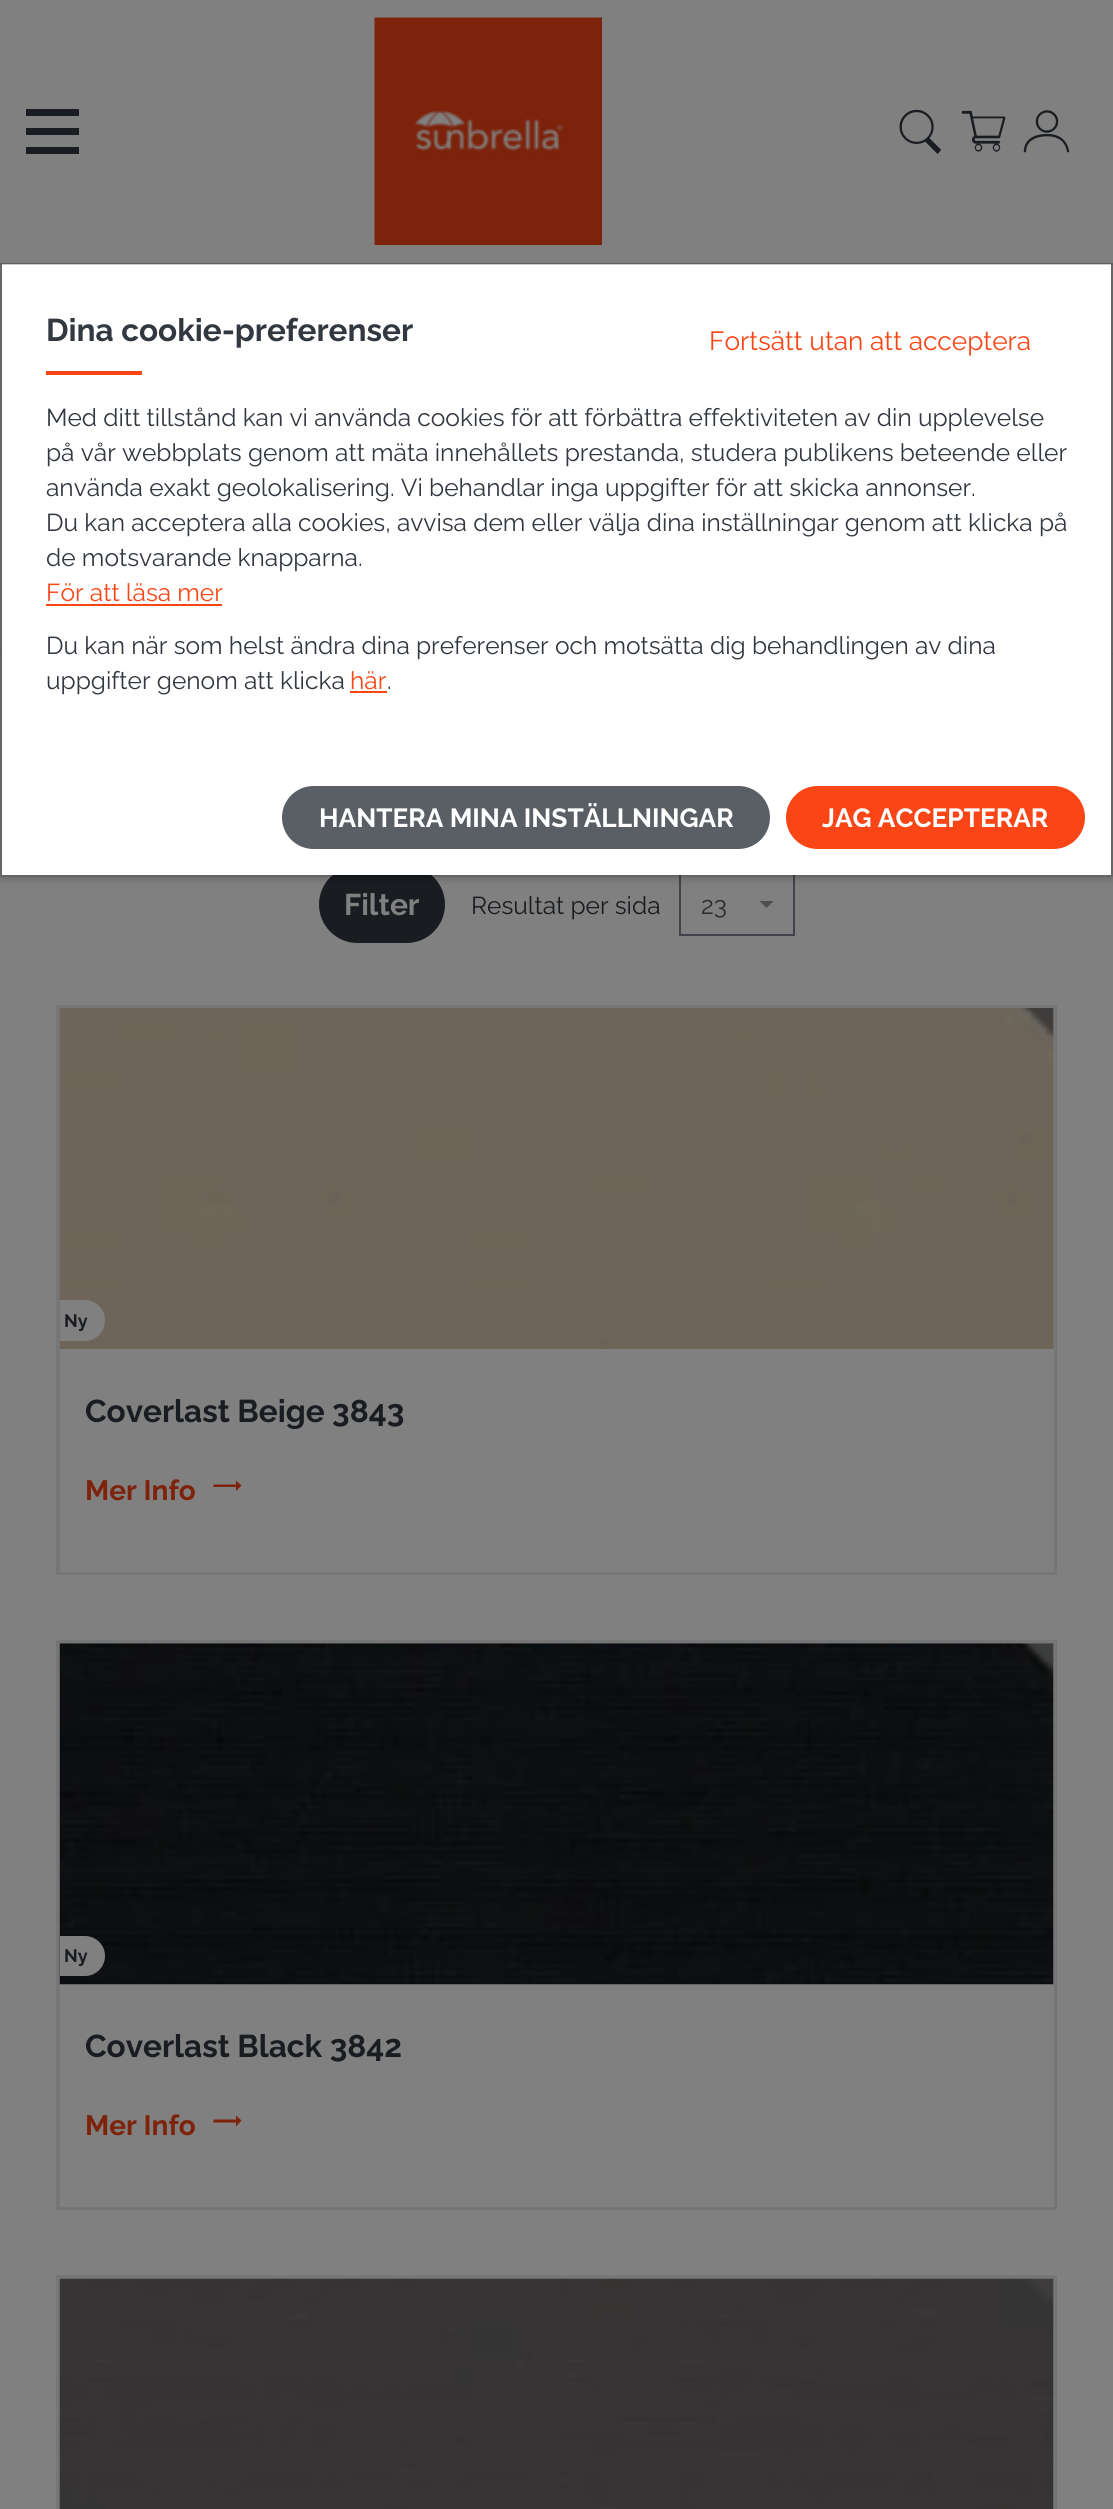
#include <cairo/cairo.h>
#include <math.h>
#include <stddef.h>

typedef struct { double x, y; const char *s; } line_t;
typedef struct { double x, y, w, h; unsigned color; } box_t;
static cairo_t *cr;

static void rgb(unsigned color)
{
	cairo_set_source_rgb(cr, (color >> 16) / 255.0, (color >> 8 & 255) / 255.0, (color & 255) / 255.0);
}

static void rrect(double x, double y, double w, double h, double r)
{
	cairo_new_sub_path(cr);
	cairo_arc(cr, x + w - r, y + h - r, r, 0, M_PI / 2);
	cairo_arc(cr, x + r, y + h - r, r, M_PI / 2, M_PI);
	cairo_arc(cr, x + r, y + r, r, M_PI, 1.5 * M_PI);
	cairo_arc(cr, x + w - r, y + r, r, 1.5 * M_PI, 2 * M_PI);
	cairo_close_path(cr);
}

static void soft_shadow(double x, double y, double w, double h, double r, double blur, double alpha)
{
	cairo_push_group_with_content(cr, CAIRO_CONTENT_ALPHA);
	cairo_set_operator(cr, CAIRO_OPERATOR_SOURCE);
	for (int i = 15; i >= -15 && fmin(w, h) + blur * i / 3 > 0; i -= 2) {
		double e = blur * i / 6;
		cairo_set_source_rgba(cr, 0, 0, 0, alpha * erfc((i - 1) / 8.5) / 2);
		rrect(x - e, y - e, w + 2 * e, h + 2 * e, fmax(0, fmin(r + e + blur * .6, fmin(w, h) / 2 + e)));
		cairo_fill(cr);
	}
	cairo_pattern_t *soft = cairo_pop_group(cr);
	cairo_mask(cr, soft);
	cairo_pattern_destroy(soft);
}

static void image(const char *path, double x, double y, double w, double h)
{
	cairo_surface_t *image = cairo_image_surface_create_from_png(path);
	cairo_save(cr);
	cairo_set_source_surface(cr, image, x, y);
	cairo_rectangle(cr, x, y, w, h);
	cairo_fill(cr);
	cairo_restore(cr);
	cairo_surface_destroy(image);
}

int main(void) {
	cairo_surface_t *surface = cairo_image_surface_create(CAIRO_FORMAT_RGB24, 1113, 2509);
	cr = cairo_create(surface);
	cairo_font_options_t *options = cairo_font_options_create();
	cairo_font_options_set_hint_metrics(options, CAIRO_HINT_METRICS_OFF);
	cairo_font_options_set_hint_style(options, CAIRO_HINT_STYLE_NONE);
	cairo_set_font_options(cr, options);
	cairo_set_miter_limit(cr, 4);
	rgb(0x808080);
	cairo_paint(cr);
	rgb(0x797979);
	cairo_rectangle(cr, 0, 653, 1113, 2);
	cairo_fill(cr);
	rgb(0x777676);
	cairo_rectangle(cr, 0, 263, 1113, 2);
	cairo_fill(cr);
	rgb(0x191c20);
	rrect(319, 866, 126, 77, 38.5);
	cairo_fill(cr);
	cairo_rectangle(cr, 680, 874, 114, 61);
	rgb(0x40444a);
	cairo_stroke(cr);
	cairo_save(cr);
	cairo_set_fill_rule(cr, CAIRO_FILL_RULE_EVEN_ODD);
	cairo_new_path(cr);
	cairo_move_to(cr, 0, 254);
	cairo_line_to(cr, 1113, 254);
	cairo_line_to(cr, 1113, 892);
	cairo_line_to(cr, 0, 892);
	cairo_close_path(cr);
	cairo_move_to(cr, 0, 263);
	cairo_line_to(cr, 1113, 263);
	cairo_line_to(cr, 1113, 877);
	cairo_line_to(cr, 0, 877);
	cairo_close_path(cr);
	cairo_clip(cr);
	rgb(0x000000);
	soft_shadow(0, 266, 1113, 614, 0, 3.5, 0.15);
	cairo_restore(cr);
	rgb(0xffffff);
	cairo_rectangle(cr, 2, 264, 1109, 611);
	cairo_fill(cr);
	cairo_rectangle(cr, 1, 264, 1111, 612);
	cairo_set_source_rgba(cr, 0, 0, 0, 0.2);
	cairo_stroke(cr);
	{
		static const box_t items[] = {
			{46, 371, 96, 4, 0xfa4616},
			{46, 604, 176, 2, 0xfa4616},
			{350, 691, 37, 2, 0xfa4616},
		};
		for (size_t i = 0; i < sizeof items / sizeof *items; i++) {
			rgb(items[i].color);
			cairo_rectangle(cr, items[i].x, items[i].y, items[i].w, items[i].h);
			cairo_fill(cr);
		}
	}
	rgb(0x5a5f66);
	rrect(283, 787, 486, 61, 30.5);
	cairo_fill_preserve(cr);
	cairo_stroke(cr);
	rgb(0xfa4616);
	rrect(787, 787, 297, 61, 30.5);
	cairo_fill_preserve(cr);
	cairo_stroke(cr);
	{
		static const box_t items[] = {
			{26, 109, 53, 7, 0x191c20},
			{26, 128, 53, 7, 0x191c20},
			{26, 147, 53, 7, 0x191c20},
		};
		for (size_t i = 0; i < sizeof items / sizeof *items; i++) {
			rgb(items[i].color);
			cairo_rectangle(cr, items[i].x, items[i].y, items[i].w, items[i].h);
			cairo_fill(cr);
		}
	}
	image("img/1.png", 374, 17, 228, 228);
	image("img/2.png", 899, 109, 43, 45);
	image("img/3.png", 961, 110, 45, 42);
	image("img/4.png", 1023, 110, 47, 43);
	rgb(0x4d4d4d);
	cairo_new_path(cr);
	cairo_move_to(cr, 759.5, 901);
	cairo_line_to(cr, 773.5, 901);
	cairo_line_to(cr, 766.5, 908);
	cairo_close_path(cr);
	cairo_fill(cr);
	cairo_rectangle(cr, 58, 1007, 997, 566);
	rgb(0x777676);
	cairo_set_line_width(cr, 4);
	cairo_stroke(cr);
	rgb(0x808080);
	cairo_rectangle(cr, 60, 1349, 994, 223);
	cairo_fill(cr);
	image("img/5.png", 59, 1008, 995, 342);
	cairo_new_path(cr);
	cairo_move_to(cr, 60, 1300);
	cairo_line_to(cr, 84.5, 1300);
	cairo_curve_to(cr, 96, 1300, 105, 1309, 105, 1320.5);
	cairo_curve_to(cr, 105, 1332, 96, 1341, 84.5, 1341);
	cairo_line_to(cr, 60, 1341);
	cairo_close_path(cr);
	cairo_fill(cr);
	rgb(0x7d230b);
	cairo_new_path(cr);
	cairo_move_to(cr, 241.5, 1485.5);
	cairo_line_to(cr, 236, 1480.5);
	cairo_line_to(cr, 236, 1484.5);
	cairo_line_to(cr, 213.5, 1484.5);
	cairo_line_to(cr, 213.5, 1487);
	cairo_line_to(cr, 236, 1487);
	cairo_line_to(cr, 236, 1491);
	cairo_close_path(cr);
	cairo_fill(cr);
	cairo_rectangle(cr, 58, 1642, 997, 566);
	rgb(0x777676);
	cairo_stroke(cr);
	image("img/6.png", 59, 1643, 995, 342);
	rgb(0x808080);
	cairo_new_path(cr);
	cairo_move_to(cr, 60, 1936);
	cairo_line_to(cr, 85, 1936);
	cairo_curve_to(cr, 96, 1936, 105, 1945, 105, 1956);
	cairo_curve_to(cr, 105, 1967, 96, 1976, 85, 1976);
	cairo_line_to(cr, 60, 1976);
	cairo_close_path(cr);
	cairo_fill(cr);
	cairo_rectangle(cr, 60, 1985, 994, 222);
	cairo_fill(cr);
	rgb(0x7d230b);
	cairo_new_path(cr);
	cairo_move_to(cr, 241.5, 2120.5);
	cairo_line_to(cr, 236, 2115.5);
	cairo_line_to(cr, 236, 2119.5);
	cairo_line_to(cr, 213.5, 2119.5);
	cairo_line_to(cr, 213.5, 2122.5);
	cairo_line_to(cr, 236, 2122.5);
	cairo_line_to(cr, 236, 2126.5);
	cairo_close_path(cr);
	cairo_fill(cr);
	cairo_rectangle(cr, 58, 2277, 997, 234);
	rgb(0x777676);
	cairo_stroke(cr);
	image("img/7.png", 59, 2278, 995, 231);
	cairo_select_font_face(cr, "Raleway", CAIRO_FONT_SLANT_NORMAL, CAIRO_FONT_WEIGHT_BOLD);
	cairo_set_font_size(cr, 31.5);
	rgb(0x32383f);
	cairo_move_to(cr, 46, 341);
	cairo_show_text(cr, "Dina cookie-preferenser");
	cairo_select_font_face(cr, "Raleway", CAIRO_FONT_SLANT_NORMAL, CAIRO_FONT_WEIGHT_NORMAL);
	cairo_set_font_size(cr, 26.25);
	rgb(0xfa4616);
	cairo_move_to(cr, 709, 350);
	cairo_show_text(cr, "Fortsätt utan att acceptera");
	cairo_set_font_size(cr, 24.5);
	rgb(0x32383f);
	{
		static const line_t items[] = {
			{46, 426, "Med ditt tillstånd kan vi använda cookies för att förbättra effektiviteten av din upplevelse"},
			{46, 461, "på vår webbplats genom att mäta innehållets prestanda, studera publikens beteende eller"},
			{46, 496, "använda exakt geolokalisering. Vi behandlar inga uppgifter för att skicka annonser."},
			{46, 531, "Du kan acceptera alla cookies, avvisa dem eller välja dina inställningar genom att klicka på"},
			{46, 566, "de motsvarande knapparna."},
		};
		for (size_t i = 0; i < sizeof items / sizeof *items; i++) {
			cairo_move_to(cr, items[i].x, items[i].y);
			cairo_show_text(cr, items[i].s);
		}
	}
	rgb(0xfa4616);
	cairo_move_to(cr, 46, 601);
	cairo_show_text(cr, "För att läsa mer");
	rgb(0x32383f);
	cairo_move_to(cr, 46, 654);
	cairo_show_text(cr, "Du kan när som helst ändra dina preferenser och motsätta dig behandlingen av dina");
	cairo_move_to(cr, 46, 689);
	cairo_show_text(cr, "uppgifter genom att klicka");
	rgb(0xfa4616);
	cairo_move_to(cr, 350, 689);
	cairo_show_text(cr, "här");
	rgb(0x32383f);
	cairo_move_to(cr, 387, 689);
	cairo_show_text(cr, ".");
	cairo_select_font_face(cr, "Raleway", CAIRO_FONT_SLANT_NORMAL, CAIRO_FONT_WEIGHT_BOLD);
	cairo_set_font_size(cr, 26.25);
	rgb(0xffffff);
	cairo_move_to(cr, 319, 827);
	cairo_show_text(cr, "HANTERA MINA INSTÄLLNINGAR");
	cairo_move_to(cr, 822, 827);
	cairo_show_text(cr, "JAG ACCEPTERAR");
	cairo_set_font_size(cr, 30);
	rgb(0x808080);
	cairo_move_to(cr, 344, 915);
	cairo_show_text(cr, "Filter");
	cairo_select_font_face(cr, "Raleway", CAIRO_FONT_SLANT_NORMAL, CAIRO_FONT_WEIGHT_NORMAL);
	cairo_set_font_size(cr, 24.5);
	rgb(0x191c20);
	cairo_move_to(cr, 471, 914);
	cairo_show_text(cr, "Resultat per sida");
	rgb(0x2b2b2b);
	cairo_move_to(cr, 701, 914);
	cairo_show_text(cr, "23");
	cairo_select_font_face(cr, "Raleway", CAIRO_FONT_SLANT_NORMAL, CAIRO_FONT_WEIGHT_BOLD);
	cairo_set_font_size(cr, 18);
	rgb(0x191c20);
	cairo_move_to(cr, 64, 1327);
	cairo_show_text(cr, "Ny");
	cairo_set_font_size(cr, 31.5);
	cairo_move_to(cr, 85, 1422);
	cairo_show_text(cr, "Coverlast Beige 3843");
	cairo_set_font_size(cr, 28);
	rgb(0x7d230b);
	cairo_move_to(cr, 85, 1500);
	cairo_show_text(cr, "Mer Info");
	cairo_set_font_size(cr, 18);
	rgb(0x191c20);
	cairo_move_to(cr, 64, 1962);
	cairo_show_text(cr, "Ny");
	cairo_set_font_size(cr, 31.5);
	cairo_move_to(cr, 85, 2057);
	cairo_show_text(cr, "Coverlast Black 3842");
	cairo_set_font_size(cr, 28);
	rgb(0x7d230b);
	cairo_move_to(cr, 85, 2135);
	cairo_show_text(cr, "Mer Info");
	cairo_surface_write_to_png(surface, "page.png");
	cairo_font_options_destroy(options);
	cairo_destroy(cr);
	cairo_surface_destroy(surface);
	return 0;
}
